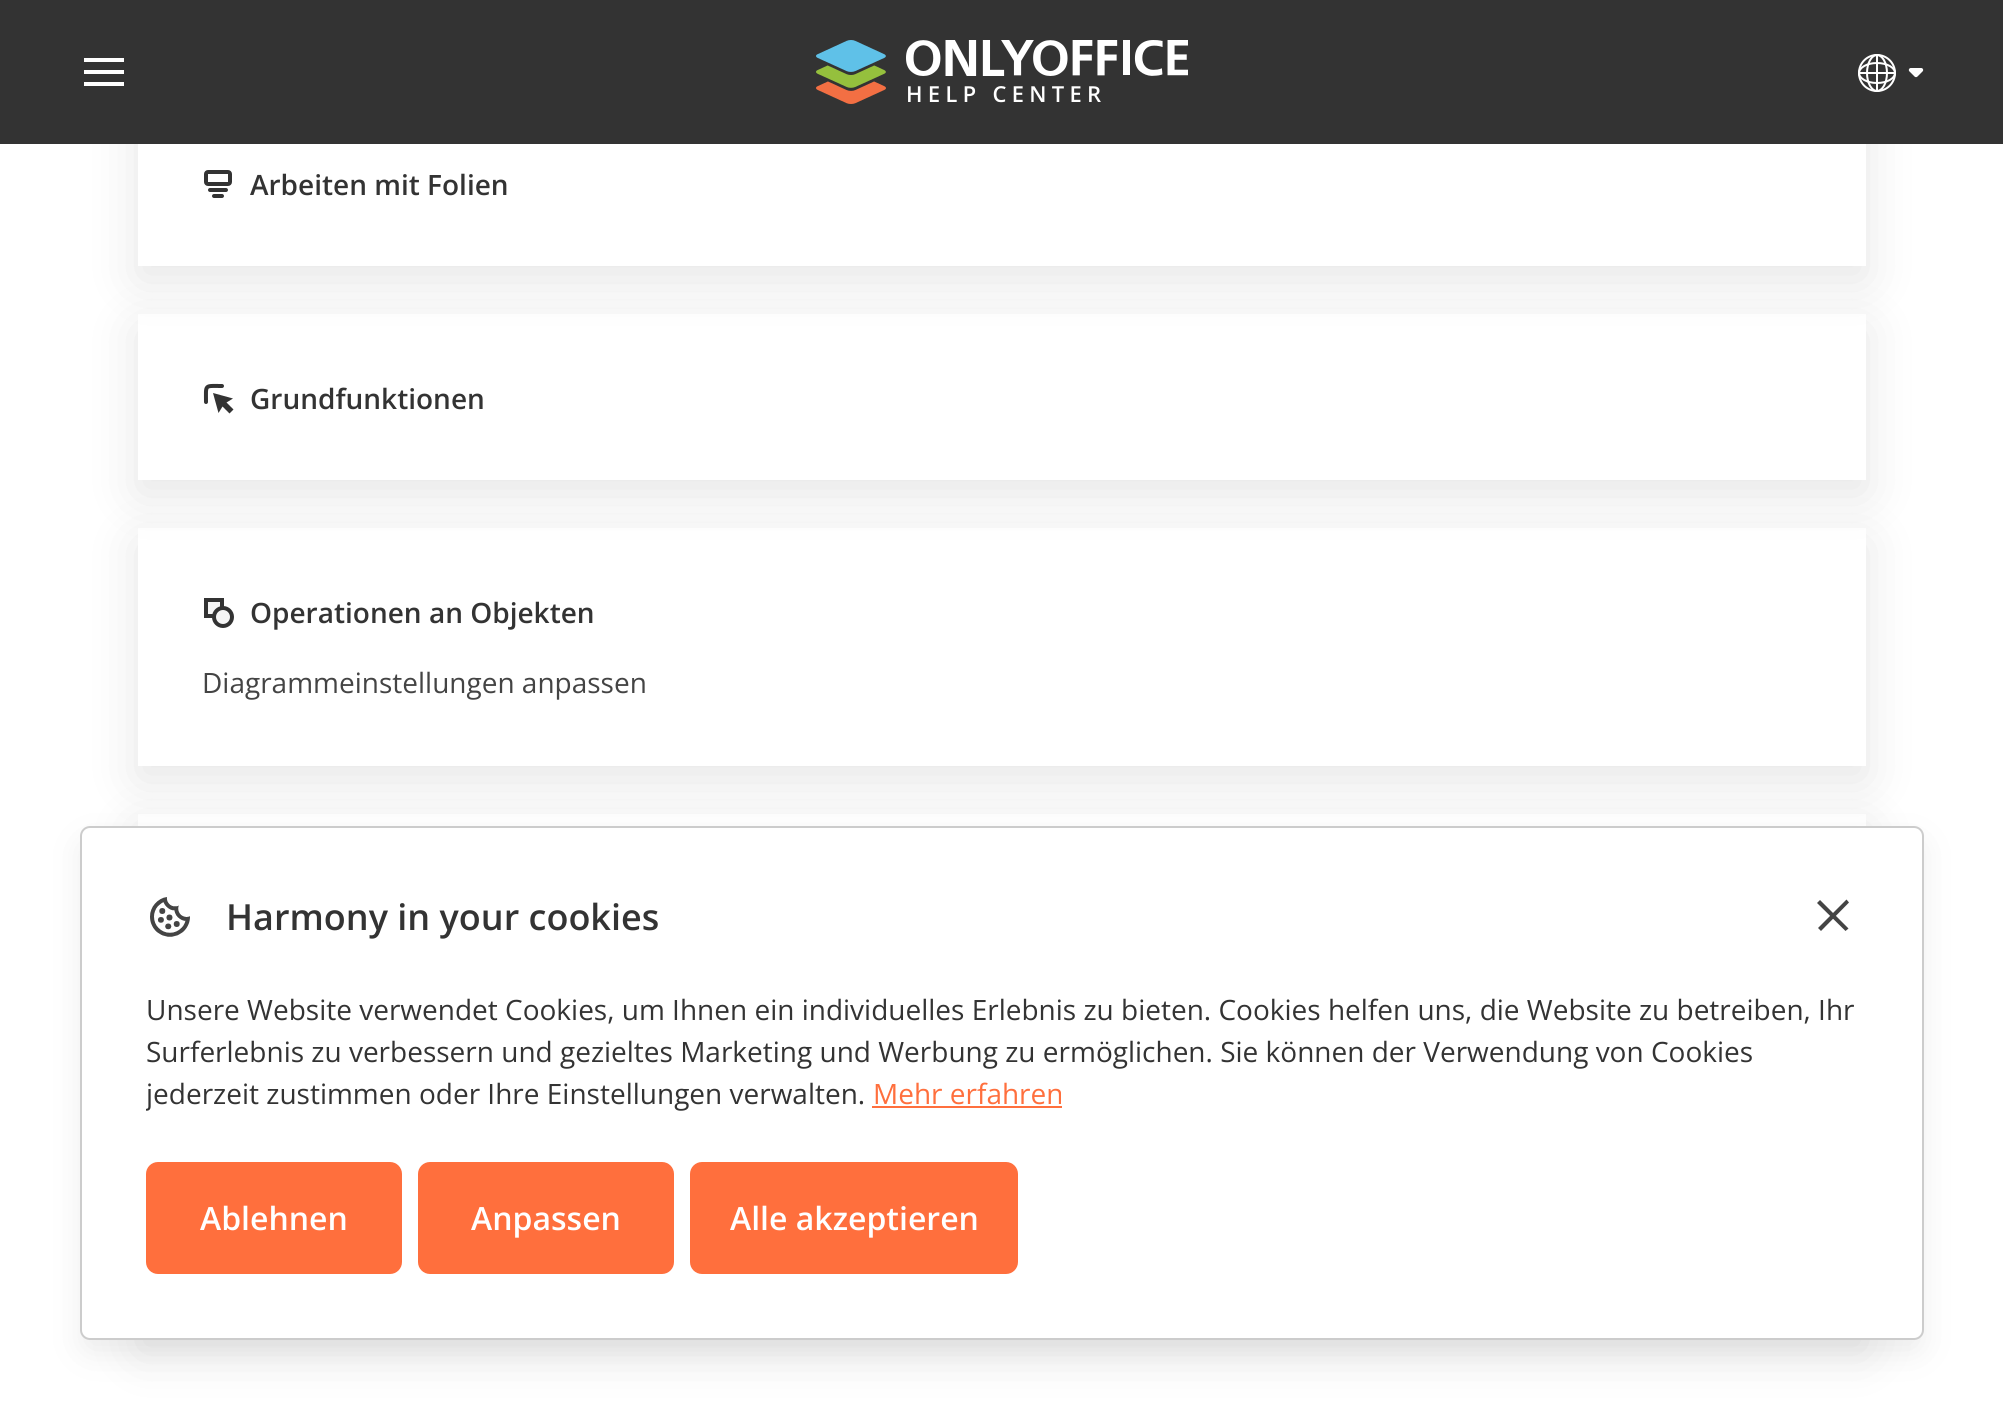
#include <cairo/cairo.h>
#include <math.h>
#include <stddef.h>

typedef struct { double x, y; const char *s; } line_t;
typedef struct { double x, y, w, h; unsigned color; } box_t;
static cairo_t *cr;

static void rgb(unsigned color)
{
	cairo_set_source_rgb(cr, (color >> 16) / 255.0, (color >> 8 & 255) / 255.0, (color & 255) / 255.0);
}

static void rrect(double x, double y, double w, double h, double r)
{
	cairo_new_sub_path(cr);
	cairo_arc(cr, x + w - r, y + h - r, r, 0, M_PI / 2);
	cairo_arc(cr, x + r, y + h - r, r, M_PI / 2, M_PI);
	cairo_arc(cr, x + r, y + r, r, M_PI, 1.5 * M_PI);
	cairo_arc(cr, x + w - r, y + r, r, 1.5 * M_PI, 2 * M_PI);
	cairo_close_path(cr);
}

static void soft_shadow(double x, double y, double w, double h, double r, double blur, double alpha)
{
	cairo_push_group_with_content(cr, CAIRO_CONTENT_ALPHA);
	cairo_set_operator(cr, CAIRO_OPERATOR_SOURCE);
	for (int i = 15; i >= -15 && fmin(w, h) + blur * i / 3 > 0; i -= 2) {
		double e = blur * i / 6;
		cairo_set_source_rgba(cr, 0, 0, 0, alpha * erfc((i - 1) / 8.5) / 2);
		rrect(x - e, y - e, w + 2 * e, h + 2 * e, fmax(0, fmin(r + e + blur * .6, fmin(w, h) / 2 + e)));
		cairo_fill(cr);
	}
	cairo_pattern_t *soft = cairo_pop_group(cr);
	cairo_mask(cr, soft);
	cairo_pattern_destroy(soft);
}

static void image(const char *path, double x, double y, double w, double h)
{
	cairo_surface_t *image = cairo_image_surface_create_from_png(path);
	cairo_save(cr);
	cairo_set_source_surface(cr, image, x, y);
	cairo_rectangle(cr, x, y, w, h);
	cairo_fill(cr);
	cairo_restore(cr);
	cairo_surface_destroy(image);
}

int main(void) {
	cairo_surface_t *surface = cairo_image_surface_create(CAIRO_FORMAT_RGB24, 2003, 1412);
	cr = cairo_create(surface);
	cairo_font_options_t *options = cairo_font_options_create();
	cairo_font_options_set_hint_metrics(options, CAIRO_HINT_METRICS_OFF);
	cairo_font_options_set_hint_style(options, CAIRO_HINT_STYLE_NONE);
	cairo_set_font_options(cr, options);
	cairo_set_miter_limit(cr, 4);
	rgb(0xffffff);
	cairo_paint(cr);
	cairo_save(cr);
	cairo_set_fill_rule(cr, CAIRO_FILL_RULE_EVEN_ODD);
	cairo_new_path(cr);
	cairo_move_to(cr, 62, 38);
	cairo_line_to(cr, 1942, 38);
	cairo_line_to(cr, 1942, 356);
	cairo_line_to(cr, 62, 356);
	cairo_close_path(cr);
	cairo_move_to(cr, 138, 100);
	cairo_line_to(cr, 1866, 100);
	cairo_line_to(cr, 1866, 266);
	cairo_line_to(cr, 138, 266);
	cairo_close_path(cr);
	cairo_clip(cr);
	rgb(0x555555);
	soft_shadow(138, 114, 1728, 166, 0, 25, 0.15);
	cairo_restore(cr);
	{
		static const box_t items[] = {
			{0, 0, 2003, 144, 0x333333},
			{84, 58, 40, 4, 0xffffff},
			{84, 70, 40, 4, 0xffffff},
			{84, 82, 40, 4, 0xffffff},
		};
		for (size_t i = 0; i < sizeof items / sizeof *items; i++) {
			rgb(items[i].color);
			cairo_rectangle(cr, items[i].x, items[i].y, items[i].w, items[i].h);
			cairo_fill(cr);
		}
	}
	image("img/1.png", 816, 40, 372, 64);
	image("img/2.png", 1858, 54, 38, 38);
	image("img/3.png", 1908, 68, 16, 10);
	image("img/4.png", 204, 170, 28, 28);
	cairo_save(cr);
	cairo_set_fill_rule(cr, CAIRO_FILL_RULE_EVEN_ODD);
	cairo_new_path(cr);
	cairo_move_to(cr, 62, 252);
	cairo_line_to(cr, 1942, 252);
	cairo_line_to(cr, 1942, 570);
	cairo_line_to(cr, 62, 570);
	cairo_close_path(cr);
	cairo_move_to(cr, 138, 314);
	cairo_line_to(cr, 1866, 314);
	cairo_line_to(cr, 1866, 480);
	cairo_line_to(cr, 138, 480);
	cairo_close_path(cr);
	cairo_clip(cr);
	rgb(0x555555);
	soft_shadow(138, 328, 1728, 166, 0, 25, 0.15);
	cairo_restore(cr);
	rgb(0x333333);
	cairo_new_path(cr);
	cairo_move_to(cr, 218.5, 413);
	cairo_line_to(cr, 213, 393);
	cairo_line_to(cr, 233, 398.5);
	cairo_line_to(cr, 226.5, 402.5);
	cairo_line_to(cr, 233.5, 409.5);
	cairo_line_to(cr, 229.5, 413.5);
	cairo_line_to(cr, 222.5, 406.5);
	cairo_close_path(cr);
	cairo_fill(cr);
	cairo_new_path(cr);
	cairo_move_to(cr, 222, 386);
	cairo_curve_to(cr, 204, 386, 206, 384, 206, 402);
	cairo_set_line_width(cr, 4);
	cairo_set_line_cap(cr, CAIRO_LINE_CAP_ROUND);
	cairo_set_line_join(cr, CAIRO_LINE_JOIN_ROUND);
	cairo_stroke(cr);
	cairo_save(cr);
	cairo_set_fill_rule(cr, CAIRO_FILL_RULE_EVEN_ODD);
	cairo_new_path(cr);
	cairo_move_to(cr, 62, 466);
	cairo_line_to(cr, 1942, 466);
	cairo_line_to(cr, 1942, 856);
	cairo_line_to(cr, 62, 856);
	cairo_close_path(cr);
	cairo_move_to(cr, 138, 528);
	cairo_line_to(cr, 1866, 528);
	cairo_line_to(cr, 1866, 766);
	cairo_line_to(cr, 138, 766);
	cairo_close_path(cr);
	cairo_clip(cr);
	rgb(0x555555);
	soft_shadow(138, 542, 1728, 238, 0, 25, 0.15);
	cairo_restore(cr);
	rgb(0xf5f5f5);
	cairo_rectangle(cr, 206, 600, 16, 16);
	cairo_fill_preserve(cr);
	rgb(0x333333);
	cairo_set_line_cap(cr, CAIRO_LINE_CAP_BUTT);
	cairo_set_line_join(cr, CAIRO_LINE_JOIN_MITER);
	cairo_stroke(cr);
	rgb(0xf5f5f5);
	cairo_arc(cr, 223, 617, 9, 0, 2 * M_PI);
	cairo_fill_preserve(cr);
	rgb(0x333333);
	cairo_stroke(cr);
	cairo_save(cr);
	cairo_set_fill_rule(cr, CAIRO_FILL_RULE_EVEN_ODD);
	cairo_new_path(cr);
	cairo_move_to(cr, 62, 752);
	cairo_line_to(cr, 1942, 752);
	cairo_line_to(cr, 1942, 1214);
	cairo_line_to(cr, 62, 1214);
	cairo_close_path(cr);
	cairo_move_to(cr, 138, 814);
	cairo_line_to(cr, 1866, 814);
	cairo_line_to(cr, 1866, 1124);
	cairo_line_to(cr, 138, 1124);
	cairo_close_path(cr);
	cairo_clip(cr);
	rgb(0x555555);
	soft_shadow(138, 828, 1728, 310, 0, 25, 0.15);
	cairo_restore(cr);
	rgb(0x555555);
	soft_shadow(138, 1186, 1728, 166, 0, 25, 0.15);
	soft_shadow(80, 840, 1844, 514, 10, 15, 0.1);
	rgb(0xffffff);
	rrect(81, 827, 1842, 512, 9);
	cairo_fill_preserve(cr);
	rgb(0xcccccc);
	cairo_set_line_width(cr, 2);
	cairo_stroke(cr);
	image("img/5.png", 150, 897, 40, 40);
	rgb(0x444444);
	cairo_new_path(cr);
	cairo_move_to(cr, 1820, 900);
	cairo_line_to(cr, 1848.5, 928.5);
	cairo_line_to(cr, 1845.5, 931);
	cairo_line_to(cr, 1817, 903);
	cairo_close_path(cr);
	cairo_fill(cr);
	cairo_new_path(cr);
	cairo_move_to(cr, 1818, 928);
	cairo_line_to(cr, 1846.5, 899.5);
	cairo_line_to(cr, 1849, 902.5);
	cairo_line_to(cr, 1821, 931);
	cairo_close_path(cr);
	cairo_fill(cr);
	rgb(0xff6f3d);
	cairo_rectangle(cr, 872, 1106, 190, 2);
	cairo_fill(cr);
	rrect(146, 1162, 256, 112, 12);
	cairo_fill(cr);
	rrect(418, 1162, 256, 112, 12);
	cairo_fill(cr);
	rrect(690, 1162, 328, 112, 12);
	cairo_fill(cr);
	cairo_select_font_face(cr, "Open Sans SemiBold", CAIRO_FONT_SLANT_NORMAL, CAIRO_FONT_WEIGHT_NORMAL);
	cairo_set_font_size(cr, 28);
	rgb(0x333333);
	{
		static const line_t items[] = {
			{250, 195, "Arbeiten mit Folien"},
			{250, 409, "Grundfunktionen"},
			{250, 623, "Operationen an Objekten"},
		};
		for (size_t i = 0; i < sizeof items / sizeof *items; i++) {
			cairo_move_to(cr, items[i].x, items[i].y);
			cairo_show_text(cr, items[i].s);
		}
	}
	cairo_select_font_face(cr, "Open Sans", CAIRO_FONT_SLANT_NORMAL, CAIRO_FONT_WEIGHT_NORMAL);
	rgb(0x444444);
	cairo_move_to(cr, 202, 693);
	cairo_show_text(cr, "Diagrammeinstellungen anpassen");
	cairo_select_font_face(cr, "Open Sans SemiBold", CAIRO_FONT_SLANT_NORMAL, CAIRO_FONT_WEIGHT_NORMAL);
	cairo_set_font_size(cr, 36);
	rgb(0x333333);
	cairo_move_to(cr, 226, 930);
	cairo_show_text(cr, "Harmony in your cookies");
	cairo_select_font_face(cr, "Open Sans", CAIRO_FONT_SLANT_NORMAL, CAIRO_FONT_WEIGHT_NORMAL);
	cairo_set_font_size(cr, 28);
	cairo_move_to(cr, 146, 1020);
	cairo_show_text(cr, "Unsere Website verwendet Cookies, um Ihnen ein individuelles Erlebnis zu bieten. Cookies helfen uns, die Website zu betreiben, Ihr");
	cairo_move_to(cr, 146, 1062);
	cairo_show_text(cr, "Surferlebnis zu verbessern und gezieltes Marketing und Werbung zu ermöglichen. Sie können der Verwendung von Cookies");
	cairo_save(cr);
	cairo_rectangle(cr, 146, 988, 1712, 126);
	cairo_clip(cr);
	cairo_move_to(cr, 146, 1104);
	cairo_show_text(cr, "jederzeit zustimmen oder Ihre Einstellungen verwalten.");
	cairo_restore(cr);
	rgb(0xff6f3d);
	cairo_move_to(cr, 873, 1104);
	cairo_show_text(cr, "Mehr erfahren");
	cairo_select_font_face(cr, "Open Sans SemiBold", CAIRO_FONT_SLANT_NORMAL, CAIRO_FONT_WEIGHT_NORMAL);
	cairo_set_font_size(cr, 32);
	rgb(0xffffff);
	{
		static const line_t items[] = {
			{200, 1230, "Ablehnen"},
			{471, 1230, "Anpassen"},
			{730, 1230, "Alle akzeptieren"},
		};
		for (size_t i = 0; i < sizeof items / sizeof *items; i++) {
			cairo_move_to(cr, items[i].x, items[i].y);
			cairo_show_text(cr, items[i].s);
		}
	}
	cairo_surface_write_to_png(surface, "page.png");
	cairo_font_options_destroy(options);
	cairo_destroy(cr);
	cairo_surface_destroy(surface);
	return 0;
}
